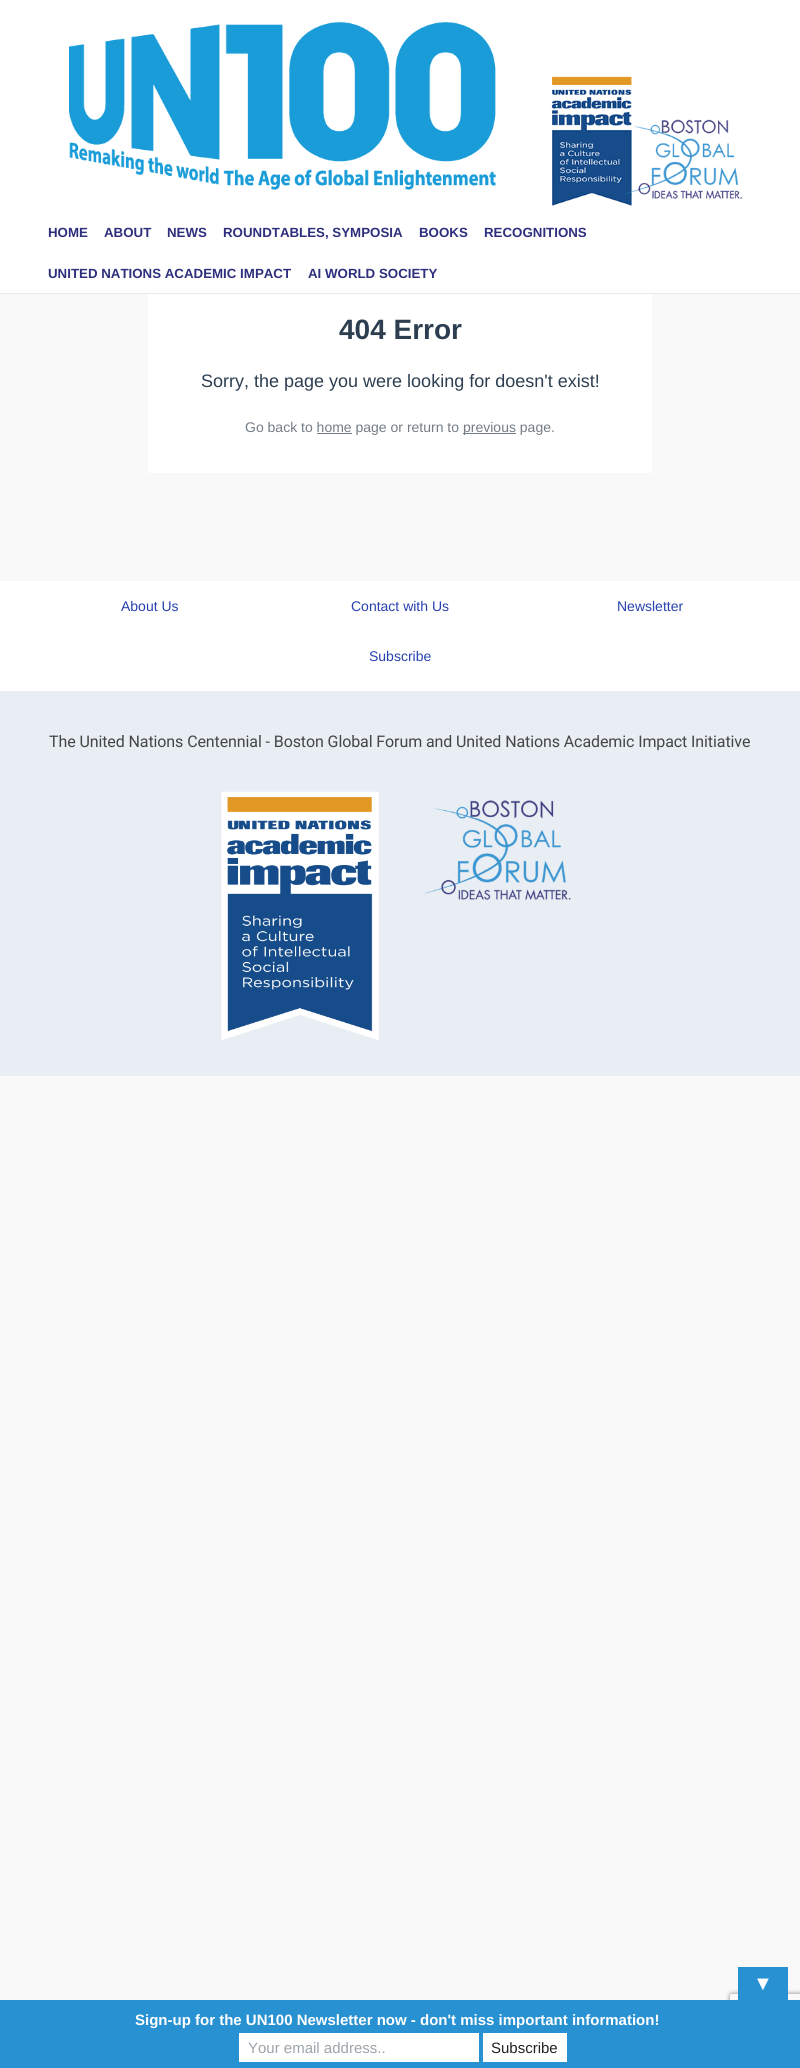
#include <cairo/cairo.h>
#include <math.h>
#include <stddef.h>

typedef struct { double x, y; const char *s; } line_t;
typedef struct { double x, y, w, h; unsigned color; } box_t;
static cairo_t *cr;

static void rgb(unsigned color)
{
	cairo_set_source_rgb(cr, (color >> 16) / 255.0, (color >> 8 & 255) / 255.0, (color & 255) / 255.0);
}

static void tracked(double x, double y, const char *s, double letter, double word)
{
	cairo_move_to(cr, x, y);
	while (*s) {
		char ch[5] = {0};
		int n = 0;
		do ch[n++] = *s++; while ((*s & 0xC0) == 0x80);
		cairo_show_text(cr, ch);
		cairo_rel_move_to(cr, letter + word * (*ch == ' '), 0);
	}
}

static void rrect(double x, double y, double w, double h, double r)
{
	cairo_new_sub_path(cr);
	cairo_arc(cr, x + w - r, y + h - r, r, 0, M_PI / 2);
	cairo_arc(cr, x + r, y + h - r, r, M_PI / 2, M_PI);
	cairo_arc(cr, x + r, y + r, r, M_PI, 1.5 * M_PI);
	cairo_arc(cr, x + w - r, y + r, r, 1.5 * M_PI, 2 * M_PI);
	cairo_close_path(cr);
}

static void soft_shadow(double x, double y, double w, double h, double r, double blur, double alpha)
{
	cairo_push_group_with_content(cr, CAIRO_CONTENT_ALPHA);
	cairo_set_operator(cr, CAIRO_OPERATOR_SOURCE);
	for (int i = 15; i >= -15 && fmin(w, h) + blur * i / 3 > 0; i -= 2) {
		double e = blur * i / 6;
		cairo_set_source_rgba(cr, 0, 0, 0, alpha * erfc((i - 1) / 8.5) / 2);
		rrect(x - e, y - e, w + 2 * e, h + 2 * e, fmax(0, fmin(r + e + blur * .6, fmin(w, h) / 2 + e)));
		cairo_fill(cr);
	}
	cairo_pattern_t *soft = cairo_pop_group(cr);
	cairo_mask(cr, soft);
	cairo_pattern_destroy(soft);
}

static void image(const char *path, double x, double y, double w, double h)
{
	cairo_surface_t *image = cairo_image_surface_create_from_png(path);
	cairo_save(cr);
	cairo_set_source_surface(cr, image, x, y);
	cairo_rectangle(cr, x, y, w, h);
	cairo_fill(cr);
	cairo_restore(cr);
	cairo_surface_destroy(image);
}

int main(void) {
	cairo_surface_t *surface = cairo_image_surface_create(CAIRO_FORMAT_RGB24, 800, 2068);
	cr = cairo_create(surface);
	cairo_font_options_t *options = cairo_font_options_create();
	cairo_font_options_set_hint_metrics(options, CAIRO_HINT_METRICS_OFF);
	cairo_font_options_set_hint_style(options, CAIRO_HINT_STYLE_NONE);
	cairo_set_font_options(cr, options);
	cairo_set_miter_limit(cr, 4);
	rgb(0xf9f9f9);
	cairo_paint(cr);
	rgb(0xffffff);
	cairo_rectangle(cr, 0, 0, 800, 293);
	cairo_fill(cr);
	rgb(0xe9ecef);
	cairo_rectangle(cr, 0, 293, 800, 1);
	cairo_fill(cr);
	image("img/1.png", 69, 21, 674, 185);
	{
		static const box_t items[] = {
			{148, 294, 504, 179, 0xffffff},
			{463, 433, 53, 1, 0x737c85},
			{317, 433, 35, 1, 0x737c85},
			{0, 581, 800, 110, 0xffffff},
			{0, 691, 800, 385, 0xe8eef3},
		};
		for (size_t i = 0; i < sizeof items / sizeof *items; i++) {
			rgb(items[i].color);
			cairo_rectangle(cr, items[i].x, items[i].y, items[i].w, items[i].h);
			cairo_fill(cr);
		}
	}
	image("img/2.png", 221, 791, 158, 250);
	image("img/3.png", 422, 800, 149, 101);
	cairo_save(cr);
	cairo_set_fill_rule(cr, CAIRO_FILL_RULE_EVEN_ODD);
	cairo_new_path(cr);
	cairo_move_to(cr, 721, 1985);
	cairo_line_to(cr, 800, 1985);
	cairo_line_to(cr, 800, 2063);
	cairo_line_to(cr, 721, 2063);
	cairo_close_path(cr);
	cairo_move_to(cr, 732, 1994);
	cairo_line_to(cr, 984, 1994);
	cairo_curve_to(cr, 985, 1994, 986, 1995, 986, 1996);
	cairo_line_to(cr, 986, 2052);
	cairo_curve_to(cr, 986, 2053, 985, 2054, 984, 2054);
	cairo_line_to(cr, 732, 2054);
	cairo_curve_to(cr, 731, 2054, 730, 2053, 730, 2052);
	cairo_line_to(cr, 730, 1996);
	cairo_curve_to(cr, 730, 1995, 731, 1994, 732, 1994);
	cairo_close_path(cr);
	cairo_clip(cr);
	rgb(0x808080);
	soft_shadow(730, 1994, 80, 60, 2, 2.5, 1);
	cairo_restore(cr);
	{
		static const box_t items[] = {
			{738, 1967, 50, 33, 0x2891d2},
			{0, 2000, 800, 68, 0x2891d2},
			{239, 2033, 240, 29, 0xffffff},
			{483, 2033, 84, 29, 0xffffff},
		};
		for (size_t i = 0; i < sizeof items / sizeof *items; i++) {
			rgb(items[i].color);
			cairo_rectangle(cr, items[i].x, items[i].y, items[i].w, items[i].h);
			cairo_fill(cr);
		}
	}
	cairo_select_font_face(cr, "Liberation Sans", CAIRO_FONT_SLANT_NORMAL, CAIRO_FONT_WEIGHT_BOLD);
	cairo_set_font_size(cr, 13.3);
	rgb(0x2e2f7d);
	{
		static const line_t items[] = {
			{48, 237, "HOME"},
			{104, 237, "ABOUT"},
			{167, 237, "NEWS"},
			{223, 237, "ROUNDTABLES, SYMPOSIA"},
			{419, 237, "BOOKS"},
			{484, 237, "RECOGNITIONS"},
			{48, 278, "UNITED NATIONS ACADEMIC IMPACT"},
			{308, 278, "AI WORLD SOCIETY"},
		};
		for (size_t i = 0; i < sizeof items / sizeof *items; i++) {
			cairo_move_to(cr, items[i].x, items[i].y);
			cairo_show_text(cr, items[i].s);
		}
	}
	cairo_set_font_size(cr, 28);
	rgb(0x2c3e50);
	cairo_move_to(cr, 339, 339);
	cairo_show_text(cr, "404 Error");
	cairo_select_font_face(cr, "Liberation Sans", CAIRO_FONT_SLANT_NORMAL, CAIRO_FONT_WEIGHT_NORMAL);
	cairo_set_font_size(cr, 18);
	cairo_move_to(cr, 201, 387);
	cairo_show_text(cr, "Sorry, the page you were looking for doesn't exist!");
	cairo_set_font_size(cr, 14);
	rgb(0x737c85);
	cairo_move_to(cr, 245, 432);
	cairo_show_text(cr, "Go back to home page or return to");
	cairo_move_to(cr, 463, 432);
	cairo_show_text(cr, "previous page.");
	rgb(0x2741b0);
	{
		static const line_t items[] = {
			{121, 611, "About Us"},
			{351, 611, "Contact with Us"},
			{617, 611, "Newsletter"},
			{369, 661, "Subscribe"},
		};
		for (size_t i = 0; i < sizeof items / sizeof *items; i++) {
			cairo_move_to(cr, items[i].x, items[i].y);
			cairo_show_text(cr, items[i].s);
		}
	}
	cairo_select_font_face(cr, "Roboto", CAIRO_FONT_SLANT_NORMAL, CAIRO_FONT_WEIGHT_NORMAL);
	cairo_set_font_size(cr, 16);
	rgb(0x454545);
	tracked(49, 747, "The United Nations Centennial - Boston Global Forum and United Nations Academic Impact Initiative", -0.1, 0);
	cairo_select_font_face(cr, "Liberation Sans", CAIRO_FONT_SLANT_NORMAL, CAIRO_FONT_WEIGHT_NORMAL);
	cairo_set_font_size(cr, 20);
	rgb(0xffffff);
	cairo_move_to(cr, 753, 1990);
	cairo_show_text(cr, "▼");
	cairo_select_font_face(cr, "Liberation Sans", CAIRO_FONT_SLANT_NORMAL, CAIRO_FONT_WEIGHT_BOLD);
	cairo_set_font_size(cr, 15);
	cairo_move_to(cr, 135, 2025);
	cairo_show_text(cr, "Sign-up for the UN100 Newsletter now - don't miss important information!");
	cairo_select_font_face(cr, "Liberation Sans", CAIRO_FONT_SLANT_NORMAL, CAIRO_FONT_WEIGHT_NORMAL);
	rgb(0x9da4a9);
	cairo_move_to(cr, 248, 2053);
	cairo_show_text(cr, "Your email address..");
	rgb(0x222222);
	cairo_move_to(cr, 491, 2053);
	cairo_show_text(cr, "Subscribe");
	cairo_surface_write_to_png(surface, "page.png");
	cairo_font_options_destroy(options);
	cairo_destroy(cr);
	cairo_surface_destroy(surface);
	return 0;
}
